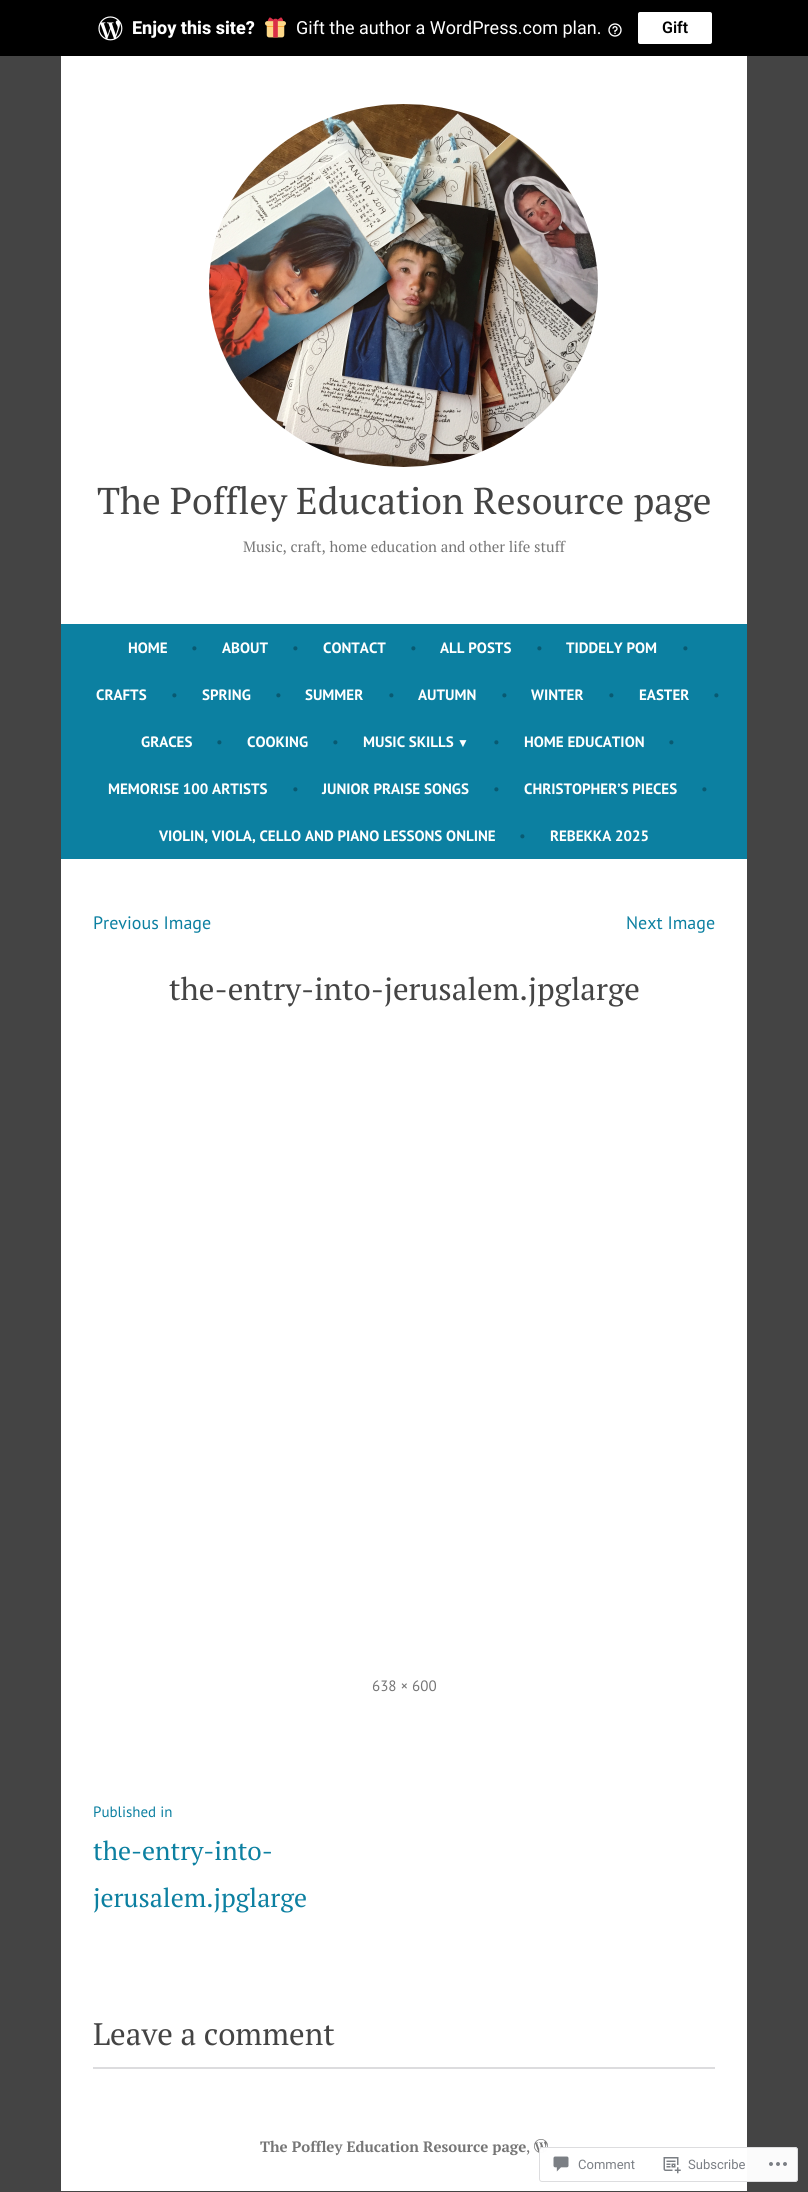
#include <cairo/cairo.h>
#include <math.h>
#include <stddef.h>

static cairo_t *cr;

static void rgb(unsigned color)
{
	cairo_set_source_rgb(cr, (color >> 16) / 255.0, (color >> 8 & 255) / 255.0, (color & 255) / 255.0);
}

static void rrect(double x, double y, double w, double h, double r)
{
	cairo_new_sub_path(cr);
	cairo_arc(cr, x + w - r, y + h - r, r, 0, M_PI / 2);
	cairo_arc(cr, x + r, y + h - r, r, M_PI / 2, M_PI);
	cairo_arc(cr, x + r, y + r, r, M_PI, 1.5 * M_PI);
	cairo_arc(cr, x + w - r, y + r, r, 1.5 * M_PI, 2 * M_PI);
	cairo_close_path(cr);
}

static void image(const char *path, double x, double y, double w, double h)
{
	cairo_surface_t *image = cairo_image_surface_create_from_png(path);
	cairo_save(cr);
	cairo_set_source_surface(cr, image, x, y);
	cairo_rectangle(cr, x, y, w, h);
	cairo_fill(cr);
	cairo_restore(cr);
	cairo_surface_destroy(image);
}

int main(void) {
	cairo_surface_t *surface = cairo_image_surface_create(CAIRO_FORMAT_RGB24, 808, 2192);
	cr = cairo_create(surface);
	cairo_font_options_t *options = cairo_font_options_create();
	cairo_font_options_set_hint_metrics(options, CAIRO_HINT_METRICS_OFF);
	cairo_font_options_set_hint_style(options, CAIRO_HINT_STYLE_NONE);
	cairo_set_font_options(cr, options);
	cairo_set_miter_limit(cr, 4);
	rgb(0x444444);
	cairo_paint(cr);
	rgb(0x000000);
	cairo_rectangle(cr, 0, 0, 808, 56);
	cairo_fill(cr);
	image("img/1.png", 98, 16, 25, 25);
	image("img/2.png", 265, 17, 21, 21);
	image("img/3.png", 608, 23, 14, 14);
	rgb(0xffffff);
	rrect(638, 12, 74, 32, 2);
	cairo_fill(cr);
	cairo_rectangle(cr, 61, 56, 686, 2135);
	cairo_fill(cr);
	image("img/4.png", 209, 104, 389, 363);
	rgb(0x0c80a1);
	cairo_rectangle(cr, 61, 624, 686, 235);
	cairo_fill(cr);
	rgb(0xdcdcde);
	cairo_rectangle(cr, 93, 2067, 622, 2);
	cairo_fill(cr);
	image("img/5.png", 534, 2139, 14, 14);
	cairo_set_source_rgba(cr, 1, 1, 1, 0.98);
	rrect(539, 2147, 259, 35, 3);
	cairo_fill(cr);
	rrect(539.5, 2147.5, 258, 34, 2.5);
	cairo_set_source_rgba(cr, 0.863, 0.863, 0.871, 0.98);
	cairo_set_line_width(cr, 1);
	cairo_stroke(cr);
	image("img/6.png", 553, 2156, 16, 16);
	image("img/7.png", 663, 2157, 18, 17);
	image("img/8.png", 769, 2162, 18, 4);
	cairo_select_font_face(cr, "Roboto ExtraBold", CAIRO_FONT_SLANT_NORMAL, CAIRO_FONT_WEIGHT_NORMAL);
	cairo_set_font_size(cr, 18);
	rgb(0xffffff);
	cairo_move_to(cr, 132, 34);
	cairo_show_text(cr, "Enjoy this site?");
	cairo_select_font_face(cr, "Roboto", CAIRO_FONT_SLANT_NORMAL, CAIRO_FONT_WEIGHT_NORMAL);
	cairo_move_to(cr, 296, 34);
	cairo_show_text(cr, "Gift the author a WordPress.com plan.");
	cairo_select_font_face(cr, "Roboto SemiBold", CAIRO_FONT_SLANT_NORMAL, CAIRO_FONT_WEIGHT_NORMAL);
	cairo_set_font_size(cr, 16);
	rgb(0x000000);
	cairo_move_to(cr, 662, 33);
	cairo_show_text(cr, "Gift");
	cairo_select_font_face(cr, "PT Serif", CAIRO_FONT_SLANT_NORMAL, CAIRO_FONT_WEIGHT_NORMAL);
	cairo_set_font_size(cr, 37.3);
	rgb(0x444444);
	cairo_move_to(cr, 97, 514);
	cairo_show_text(cr, "The Poffley Education Resource page");
	cairo_set_font_size(cr, 15);
	rgb(0x767676);
	cairo_move_to(cr, 243, 552);
	cairo_show_text(cr, "Music, craft, home education and other life stuff");
	cairo_select_font_face(cr, "PT Sans", CAIRO_FONT_SLANT_NORMAL, CAIRO_FONT_WEIGHT_BOLD);
	rgb(0xffffff);
	cairo_move_to(cr, 128, 653);
	cairo_show_text(cr, "HOME");
	cairo_select_font_face(cr, "PT Sans", CAIRO_FONT_SLANT_NORMAL, CAIRO_FONT_WEIGHT_NORMAL);
	rgb(0x085a72);
	cairo_move_to(cr, 191, 653);
	cairo_show_text(cr, "•");
	cairo_select_font_face(cr, "PT Sans", CAIRO_FONT_SLANT_NORMAL, CAIRO_FONT_WEIGHT_BOLD);
	rgb(0xffffff);
	cairo_move_to(cr, 222, 653);
	cairo_show_text(cr, "ABOUT");
	cairo_select_font_face(cr, "PT Sans", CAIRO_FONT_SLANT_NORMAL, CAIRO_FONT_WEIGHT_NORMAL);
	rgb(0x085a72);
	cairo_move_to(cr, 292, 653);
	cairo_show_text(cr, "•");
	cairo_select_font_face(cr, "PT Sans", CAIRO_FONT_SLANT_NORMAL, CAIRO_FONT_WEIGHT_BOLD);
	rgb(0xffffff);
	cairo_move_to(cr, 323, 653);
	cairo_show_text(cr, "CONTACT");
	cairo_select_font_face(cr, "PT Sans", CAIRO_FONT_SLANT_NORMAL, CAIRO_FONT_WEIGHT_NORMAL);
	rgb(0x085a72);
	cairo_move_to(cr, 410, 653);
	cairo_show_text(cr, "•");
	cairo_select_font_face(cr, "PT Sans", CAIRO_FONT_SLANT_NORMAL, CAIRO_FONT_WEIGHT_BOLD);
	rgb(0xffffff);
	cairo_move_to(cr, 440, 653);
	cairo_show_text(cr, "ALL POSTS");
	cairo_select_font_face(cr, "PT Sans", CAIRO_FONT_SLANT_NORMAL, CAIRO_FONT_WEIGHT_NORMAL);
	rgb(0x085a72);
	cairo_move_to(cr, 536, 653);
	cairo_show_text(cr, "•");
	cairo_select_font_face(cr, "PT Sans", CAIRO_FONT_SLANT_NORMAL, CAIRO_FONT_WEIGHT_BOLD);
	rgb(0xffffff);
	cairo_move_to(cr, 566, 653);
	cairo_show_text(cr, "TIDDELY POM");
	cairo_select_font_face(cr, "PT Sans", CAIRO_FONT_SLANT_NORMAL, CAIRO_FONT_WEIGHT_NORMAL);
	rgb(0x085a72);
	cairo_move_to(cr, 682, 653);
	cairo_show_text(cr, "•");
	cairo_select_font_face(cr, "PT Sans", CAIRO_FONT_SLANT_NORMAL, CAIRO_FONT_WEIGHT_BOLD);
	rgb(0xffffff);
	cairo_move_to(cr, 96, 700);
	cairo_show_text(cr, "CRAFTS");
	cairo_select_font_face(cr, "PT Sans", CAIRO_FONT_SLANT_NORMAL, CAIRO_FONT_WEIGHT_NORMAL);
	rgb(0x085a72);
	cairo_move_to(cr, 171, 700);
	cairo_show_text(cr, "•");
	cairo_select_font_face(cr, "PT Sans", CAIRO_FONT_SLANT_NORMAL, CAIRO_FONT_WEIGHT_BOLD);
	rgb(0xffffff);
	cairo_move_to(cr, 202, 700);
	cairo_show_text(cr, "SPRING");
	cairo_select_font_face(cr, "PT Sans", CAIRO_FONT_SLANT_NORMAL, CAIRO_FONT_WEIGHT_NORMAL);
	rgb(0x085a72);
	cairo_move_to(cr, 275, 700);
	cairo_show_text(cr, "•");
	cairo_select_font_face(cr, "PT Sans", CAIRO_FONT_SLANT_NORMAL, CAIRO_FONT_WEIGHT_BOLD);
	rgb(0xffffff);
	cairo_move_to(cr, 305, 700);
	cairo_show_text(cr, "SUMMER");
	cairo_select_font_face(cr, "PT Sans", CAIRO_FONT_SLANT_NORMAL, CAIRO_FONT_WEIGHT_NORMAL);
	rgb(0x085a72);
	cairo_move_to(cr, 388, 700);
	cairo_show_text(cr, "•");
	cairo_select_font_face(cr, "PT Sans", CAIRO_FONT_SLANT_NORMAL, CAIRO_FONT_WEIGHT_BOLD);
	rgb(0xffffff);
	cairo_move_to(cr, 418, 700);
	cairo_show_text(cr, "AUTUMN");
	cairo_select_font_face(cr, "PT Sans", CAIRO_FONT_SLANT_NORMAL, CAIRO_FONT_WEIGHT_NORMAL);
	rgb(0x085a72);
	cairo_move_to(cr, 501, 700);
	cairo_show_text(cr, "•");
	cairo_select_font_face(cr, "PT Sans", CAIRO_FONT_SLANT_NORMAL, CAIRO_FONT_WEIGHT_BOLD);
	rgb(0xffffff);
	cairo_move_to(cr, 531, 700);
	cairo_show_text(cr, "WINTER");
	cairo_select_font_face(cr, "PT Sans", CAIRO_FONT_SLANT_NORMAL, CAIRO_FONT_WEIGHT_NORMAL);
	rgb(0x085a72);
	cairo_move_to(cr, 608, 700);
	cairo_show_text(cr, "•");
	cairo_select_font_face(cr, "PT Sans", CAIRO_FONT_SLANT_NORMAL, CAIRO_FONT_WEIGHT_BOLD);
	rgb(0xffffff);
	cairo_move_to(cr, 639, 700);
	cairo_show_text(cr, "EASTER");
	cairo_select_font_face(cr, "PT Sans", CAIRO_FONT_SLANT_NORMAL, CAIRO_FONT_WEIGHT_NORMAL);
	rgb(0x085a72);
	cairo_move_to(cr, 713, 700);
	cairo_show_text(cr, "•");
	cairo_select_font_face(cr, "PT Sans", CAIRO_FONT_SLANT_NORMAL, CAIRO_FONT_WEIGHT_BOLD);
	rgb(0xffffff);
	cairo_move_to(cr, 141, 747);
	cairo_show_text(cr, "GRACES");
	cairo_select_font_face(cr, "PT Sans", CAIRO_FONT_SLANT_NORMAL, CAIRO_FONT_WEIGHT_NORMAL);
	rgb(0x085a72);
	cairo_move_to(cr, 216, 747);
	cairo_show_text(cr, "•");
	cairo_select_font_face(cr, "PT Sans", CAIRO_FONT_SLANT_NORMAL, CAIRO_FONT_WEIGHT_BOLD);
	rgb(0xffffff);
	cairo_move_to(cr, 247, 747);
	cairo_show_text(cr, "COOKING");
	cairo_select_font_face(cr, "PT Sans", CAIRO_FONT_SLANT_NORMAL, CAIRO_FONT_WEIGHT_NORMAL);
	rgb(0x085a72);
	cairo_move_to(cr, 332, 747);
	cairo_show_text(cr, "•");
	cairo_select_font_face(cr, "PT Sans", CAIRO_FONT_SLANT_NORMAL, CAIRO_FONT_WEIGHT_BOLD);
	rgb(0xffffff);
	cairo_move_to(cr, 363, 747);
	cairo_show_text(cr, "MUSIC SKILLS");
	cairo_select_font_face(cr, "Liberation Sans", CAIRO_FONT_SLANT_NORMAL, CAIRO_FONT_WEIGHT_BOLD);
	cairo_set_font_size(cr, 12);
	cairo_move_to(cr, 457, 747);
	cairo_show_text(cr, "▼");
	cairo_select_font_face(cr, "PT Sans", CAIRO_FONT_SLANT_NORMAL, CAIRO_FONT_WEIGHT_NORMAL);
	cairo_set_font_size(cr, 15);
	rgb(0x085a72);
	cairo_move_to(cr, 493, 747);
	cairo_show_text(cr, "•");
	cairo_select_font_face(cr, "PT Sans", CAIRO_FONT_SLANT_NORMAL, CAIRO_FONT_WEIGHT_BOLD);
	rgb(0xffffff);
	cairo_move_to(cr, 524, 747);
	cairo_show_text(cr, "HOME EDUCATION");
	cairo_select_font_face(cr, "PT Sans", CAIRO_FONT_SLANT_NORMAL, CAIRO_FONT_WEIGHT_NORMAL);
	rgb(0x085a72);
	cairo_move_to(cr, 668, 747);
	cairo_show_text(cr, "•");
	cairo_select_font_face(cr, "PT Sans", CAIRO_FONT_SLANT_NORMAL, CAIRO_FONT_WEIGHT_BOLD);
	rgb(0xffffff);
	cairo_move_to(cr, 108, 794);
	cairo_show_text(cr, "MEMORISE 100 ARTISTS");
	cairo_select_font_face(cr, "PT Sans", CAIRO_FONT_SLANT_NORMAL, CAIRO_FONT_WEIGHT_NORMAL);
	rgb(0x085a72);
	cairo_move_to(cr, 292, 794);
	cairo_show_text(cr, "•");
	cairo_select_font_face(cr, "PT Sans", CAIRO_FONT_SLANT_NORMAL, CAIRO_FONT_WEIGHT_BOLD);
	rgb(0xffffff);
	cairo_move_to(cr, 322, 794);
	cairo_show_text(cr, "JUNIOR PRAISE SONGS");
	cairo_select_font_face(cr, "PT Sans", CAIRO_FONT_SLANT_NORMAL, CAIRO_FONT_WEIGHT_NORMAL);
	rgb(0x085a72);
	cairo_move_to(cr, 493, 794);
	cairo_show_text(cr, "•");
	cairo_select_font_face(cr, "PT Sans", CAIRO_FONT_SLANT_NORMAL, CAIRO_FONT_WEIGHT_BOLD);
	rgb(0xffffff);
	cairo_move_to(cr, 524, 794);
	cairo_show_text(cr, "CHRISTOPHER’S PIECES");
	cairo_select_font_face(cr, "PT Sans", CAIRO_FONT_SLANT_NORMAL, CAIRO_FONT_WEIGHT_NORMAL);
	rgb(0x085a72);
	cairo_move_to(cr, 701, 794);
	cairo_show_text(cr, "•");
	cairo_select_font_face(cr, "PT Sans", CAIRO_FONT_SLANT_NORMAL, CAIRO_FONT_WEIGHT_BOLD);
	rgb(0xffffff);
	cairo_move_to(cr, 159, 841);
	cairo_show_text(cr, "VIOLIN, VIOLA, CELLO AND PIANO LESSONS ONLINE");
	cairo_select_font_face(cr, "PT Sans", CAIRO_FONT_SLANT_NORMAL, CAIRO_FONT_WEIGHT_NORMAL);
	rgb(0x085a72);
	cairo_move_to(cr, 519, 841);
	cairo_show_text(cr, "•");
	cairo_select_font_face(cr, "PT Sans", CAIRO_FONT_SLANT_NORMAL, CAIRO_FONT_WEIGHT_BOLD);
	rgb(0xffffff);
	cairo_move_to(cr, 550, 841);
	cairo_show_text(cr, "REBEKKA 2025");
	cairo_select_font_face(cr, "PT Sans", CAIRO_FONT_SLANT_NORMAL, CAIRO_FONT_WEIGHT_NORMAL);
	cairo_set_font_size(cr, 18);
	rgb(0x0c80a1);
	cairo_move_to(cr, 93, 929);
	cairo_show_text(cr, "Previous Image");
	cairo_move_to(cr, 626, 929);
	cairo_show_text(cr, "Next Image");
	cairo_select_font_face(cr, "PT Serif", CAIRO_FONT_SLANT_NORMAL, CAIRO_FONT_WEIGHT_NORMAL);
	cairo_set_font_size(cr, 31.1);
	rgb(0x444444);
	cairo_move_to(cr, 169, 1000);
	cairo_show_text(cr, "the-entry-into-jerusalem.jpglarge");
	cairo_select_font_face(cr, "PT Sans", CAIRO_FONT_SLANT_NORMAL, CAIRO_FONT_WEIGHT_NORMAL);
	cairo_set_font_size(cr, 15);
	rgb(0x767676);
	cairo_move_to(cr, 372, 1691);
	cairo_show_text(cr, "638 × 600");
	rgb(0x0c80a1);
	cairo_move_to(cr, 93, 1817);
	cairo_show_text(cr, "Published in");
	cairo_select_font_face(cr, "PT Serif", CAIRO_FONT_SLANT_NORMAL, CAIRO_FONT_WEIGHT_NORMAL);
	cairo_set_font_size(cr, 26);
	cairo_move_to(cr, 93, 1860);
	cairo_show_text(cr, "the-entry-into-");
	cairo_move_to(cr, 93, 1907);
	cairo_show_text(cr, "jerusalem.jpglarge");
	cairo_set_font_size(cr, 31.1);
	rgb(0x444444);
	cairo_move_to(cr, 93, 2045);
	cairo_show_text(cr, "Leave a comment");
	cairo_select_font_face(cr, "PT Serif", CAIRO_FONT_SLANT_NORMAL, CAIRO_FONT_WEIGHT_BOLD);
	cairo_set_font_size(cr, 15);
	rgb(0x767676);
	cairo_move_to(cr, 260, 2152);
	cairo_show_text(cr, "The Poffley Education Resource page");
	cairo_select_font_face(cr, "PT Serif", CAIRO_FONT_SLANT_NORMAL, CAIRO_FONT_WEIGHT_NORMAL);
	cairo_move_to(cr, 526, 2152);
	cairo_show_text(cr, ",");
	cairo_select_font_face(cr, "Roboto", CAIRO_FONT_SLANT_NORMAL, CAIRO_FONT_WEIGHT_NORMAL);
	cairo_set_font_size(cr, 13);
	rgb(0x7b7f85);
	cairo_move_to(cr, 578, 2169);
	cairo_show_text(cr, "Comment");
	cairo_move_to(cr, 688, 2169);
	cairo_show_text(cr, "Subscribe");
	cairo_surface_write_to_png(surface, "page.png");
	cairo_font_options_destroy(options);
	cairo_destroy(cr);
	cairo_surface_destroy(surface);
	return 0;
}
